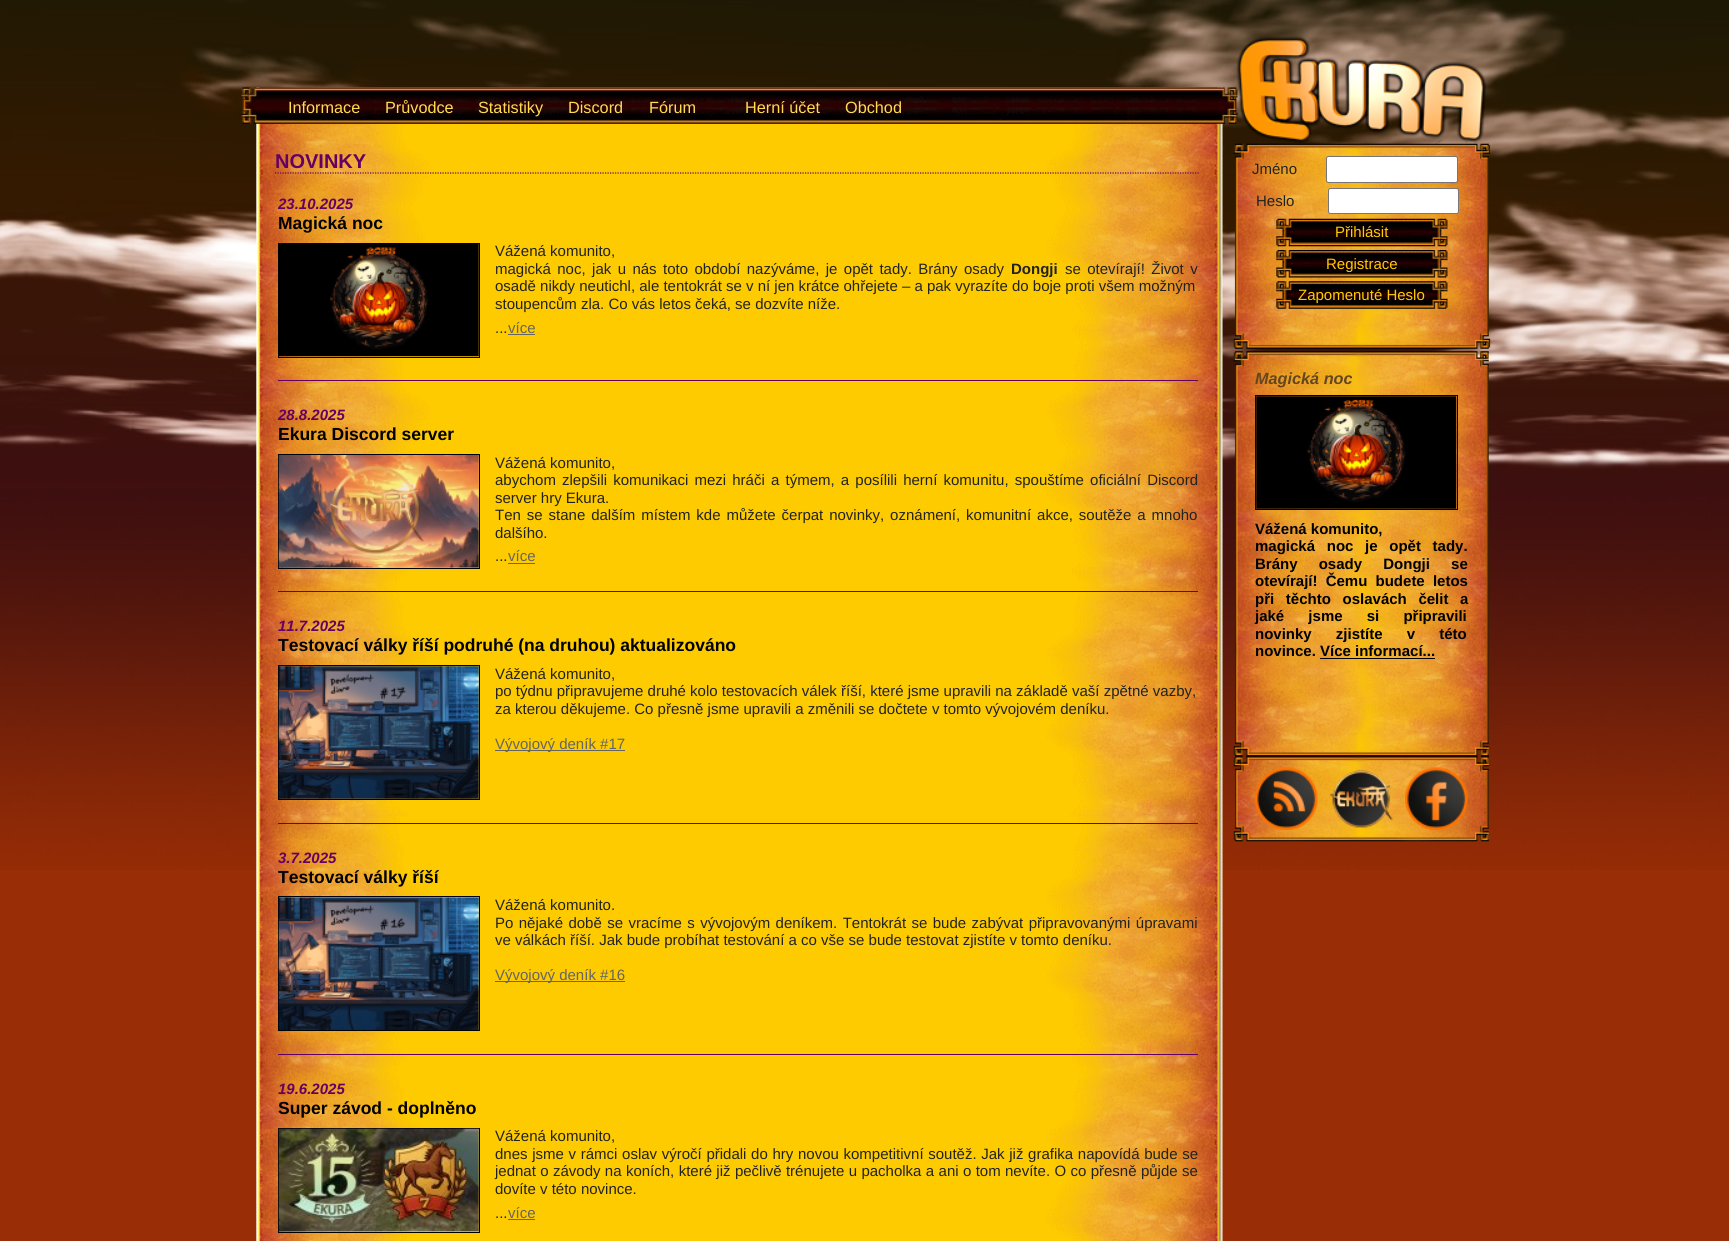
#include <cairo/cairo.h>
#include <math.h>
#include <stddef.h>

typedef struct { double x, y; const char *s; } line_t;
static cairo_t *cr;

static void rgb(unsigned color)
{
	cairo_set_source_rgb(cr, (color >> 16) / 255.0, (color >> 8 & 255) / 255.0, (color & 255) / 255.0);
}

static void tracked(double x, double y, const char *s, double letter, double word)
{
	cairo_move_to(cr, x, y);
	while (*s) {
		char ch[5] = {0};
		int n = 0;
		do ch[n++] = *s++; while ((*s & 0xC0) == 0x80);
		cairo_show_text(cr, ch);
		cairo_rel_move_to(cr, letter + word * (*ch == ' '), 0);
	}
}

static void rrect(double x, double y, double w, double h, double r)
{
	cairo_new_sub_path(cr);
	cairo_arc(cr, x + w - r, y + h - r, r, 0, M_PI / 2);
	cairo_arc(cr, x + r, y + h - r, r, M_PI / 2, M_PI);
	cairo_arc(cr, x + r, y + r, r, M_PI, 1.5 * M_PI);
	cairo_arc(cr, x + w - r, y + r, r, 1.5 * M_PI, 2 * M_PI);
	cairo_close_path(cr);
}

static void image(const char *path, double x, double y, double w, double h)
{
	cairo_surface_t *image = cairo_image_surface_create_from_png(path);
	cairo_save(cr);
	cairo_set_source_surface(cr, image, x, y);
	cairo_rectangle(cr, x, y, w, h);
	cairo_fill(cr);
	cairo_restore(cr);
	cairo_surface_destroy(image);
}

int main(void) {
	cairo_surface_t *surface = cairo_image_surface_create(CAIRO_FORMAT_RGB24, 1729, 1241);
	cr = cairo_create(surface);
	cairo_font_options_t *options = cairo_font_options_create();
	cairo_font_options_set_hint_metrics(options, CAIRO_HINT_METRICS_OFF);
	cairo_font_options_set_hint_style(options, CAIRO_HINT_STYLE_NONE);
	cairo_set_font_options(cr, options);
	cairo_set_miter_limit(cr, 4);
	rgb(0x992d05);
	cairo_paint(cr);
	image("img/1.png", 0, 0, 1729, 870);
	image("img/3.png", 256, 87, 967, 1154);
	image("img/4.png", 241, 87, 997, 37);
	image("img/2.png", 1236, 36, 251, 108);
	cairo_new_path(cr);
	cairo_move_to(cr, 275, 173);
	cairo_line_to(cr, 1200, 173);
	rgb(0x640064);
	cairo_set_line_width(cr, 1.2);
	cairo_set_dash(cr, (double[]){1.25, 1.25}, 2, 0);
	cairo_stroke(cr);
	cairo_rectangle(cr, 278.5, 243.5, 201, 114);
	rgb(0x000000);
	cairo_set_line_width(cr, 1);
	cairo_set_dash(cr, NULL, 0, 0);
	cairo_stroke(cr);
	image("img/5.png", 279, 244, 200, 113);
	rgb(0x646464);
	cairo_rectangle(cr, 508, 334, 27, 1);
	cairo_fill(cr);
	rgb(0x640064);
	cairo_rectangle(cr, 278, 380, 920, 1);
	cairo_fill(cr);
	cairo_rectangle(cr, 278.5, 454.5, 201, 114);
	rgb(0x000000);
	cairo_stroke(cr);
	image("img/6.png", 278, 455, 201, 113);
	rgb(0x646464);
	cairo_rectangle(cr, 508, 563, 27, 1);
	cairo_fill(cr);
	rgb(0x640064);
	cairo_rectangle(cr, 278, 591, 920, 1);
	cairo_fill(cr);
	cairo_rectangle(cr, 278.5, 665.5, 201, 134);
	rgb(0x000000);
	cairo_stroke(cr);
	image("img/7.png", 278, 666, 201, 133);
	rgb(0x646464);
	cairo_rectangle(cr, 495, 750, 130, 1);
	cairo_fill(cr);
	rgb(0x640064);
	cairo_rectangle(cr, 278, 823, 920, 1);
	cairo_fill(cr);
	cairo_rectangle(cr, 278.5, 896.5, 201, 134);
	rgb(0x000000);
	cairo_stroke(cr);
	image("img/8.png", 278, 897, 201, 133);
	rgb(0x646464);
	cairo_rectangle(cr, 495, 981, 130, 1);
	cairo_fill(cr);
	rgb(0x640064);
	cairo_rectangle(cr, 278, 1054, 920, 1);
	cairo_fill(cr);
	cairo_rectangle(cr, 278.5, 1128.5, 201, 104);
	rgb(0x000000);
	cairo_stroke(cr);
	image("img/9.png", 278, 1128, 201, 104);
	rgb(0x646464);
	cairo_rectangle(cr, 508, 1219, 27, 1);
	cairo_fill(cr);
	image("img/10.png", 1233, 143, 258, 206);
	rgb(0xffffff);
	rrect(1326.5, 156.5, 131, 26, 2);
	cairo_fill_preserve(cr);
	rgb(0x767676);
	cairo_stroke(cr);
	rgb(0xffffff);
	rrect(1328.5, 188.5, 130, 25, 2);
	cairo_fill_preserve(cr);
	rgb(0x767676);
	cairo_stroke(cr);
	image("img/11.png", 1276, 218, 172, 29);
	image("img/12.png", 1276, 250, 172, 28);
	image("img/13.png", 1276, 281, 172, 28);
	image("img/14.png", 1233, 351, 256, 406);
	cairo_rectangle(cr, 1255.5, 395.5, 202, 114);
	rgb(0x000000);
	cairo_stroke(cr);
	image("img/15.png", 1256, 396, 201, 113);
	cairo_rectangle(cr, 1320, 658, 115, 1);
	cairo_fill(cr);
	image("img/16.png", 1233, 756, 256, 86);
	image("img/17.png", 1255, 767, 63, 63);
	image("img/18.png", 1330, 770, 63, 58);
	image("img/19.png", 1405, 767, 63, 63);
	cairo_select_font_face(cr, "Liberation Sans", CAIRO_FONT_SLANT_NORMAL, CAIRO_FONT_WEIGHT_NORMAL);
	cairo_set_font_size(cr, 16.25);
	rgb(0xffdc50);
	{
		static const line_t items[] = {
			{288, 113, "Informace"},
			{385, 113, "Průvodce"},
			{478, 113, "Statistiky"},
			{568, 113, "Discord"},
			{649, 113, "Fórum"},
			{745, 113, "Herní účet"},
			{845, 113, "Obchod"},
		};
		for (size_t i = 0; i < sizeof items / sizeof *items; i++) {
			cairo_move_to(cr, items[i].x, items[i].y);
			cairo_show_text(cr, items[i].s);
		}
	}
	cairo_select_font_face(cr, "Liberation Sans", CAIRO_FONT_SLANT_NORMAL, CAIRO_FONT_WEIGHT_BOLD);
	cairo_set_font_size(cr, 20);
	rgb(0x640064);
	cairo_move_to(cr, 275, 168);
	cairo_show_text(cr, "NOVINKY");
	cairo_select_font_face(cr, "Liberation Sans", CAIRO_FONT_SLANT_ITALIC, CAIRO_FONT_WEIGHT_BOLD);
	cairo_set_font_size(cr, 15);
	cairo_move_to(cr, 278, 209);
	cairo_show_text(cr, "23.10.2025");
	cairo_select_font_face(cr, "Liberation Sans", CAIRO_FONT_SLANT_NORMAL, CAIRO_FONT_WEIGHT_BOLD);
	cairo_set_font_size(cr, 17.5);
	rgb(0x000000);
	cairo_move_to(cr, 278, 229);
	cairo_show_text(cr, "Magická noc");
	cairo_select_font_face(cr, "Liberation Sans", CAIRO_FONT_SLANT_NORMAL, CAIRO_FONT_WEIGHT_NORMAL);
	cairo_set_font_size(cr, 15);
	rgb(0x222222);
	cairo_move_to(cr, 495, 256);
	cairo_show_text(cr, "Vážená komunito,");
	tracked(495, 274, "magická noc, jak u nás toto období nazýváme, je opět tady. Brány osady", 0, 2.25);
	cairo_select_font_face(cr, "Liberation Sans", CAIRO_FONT_SLANT_NORMAL, CAIRO_FONT_WEIGHT_BOLD);
	cairo_move_to(cr, 1011, 274);
	cairo_show_text(cr, "Dongji");
	cairo_select_font_face(cr, "Liberation Sans", CAIRO_FONT_SLANT_NORMAL, CAIRO_FONT_WEIGHT_NORMAL);
	tracked(1065, 274, "se otevírají! Život v", 0, 2.25);
	{
		static const line_t items[] = {
			{495, 291, "osadě nikdy neutichl, ale tentokrát se v ní jen krátce ohřejete – a pak vyrazíte do boje proti všem možným"},
			{495, 309, "stoupencům zla. Co vás letos čeká, se dozvíte níže."},
			{495, 333, "..."},
		};
		for (size_t i = 0; i < sizeof items / sizeof *items; i++) {
			cairo_move_to(cr, items[i].x, items[i].y);
			cairo_show_text(cr, items[i].s);
		}
	}
	rgb(0x646464);
	cairo_move_to(cr, 508, 333);
	cairo_show_text(cr, "více");
	cairo_select_font_face(cr, "Liberation Sans", CAIRO_FONT_SLANT_ITALIC, CAIRO_FONT_WEIGHT_BOLD);
	rgb(0x640064);
	cairo_move_to(cr, 278, 420);
	cairo_show_text(cr, "28.8.2025");
	cairo_select_font_face(cr, "Liberation Sans", CAIRO_FONT_SLANT_NORMAL, CAIRO_FONT_WEIGHT_BOLD);
	cairo_set_font_size(cr, 17.5);
	rgb(0x000000);
	cairo_move_to(cr, 278, 440);
	cairo_show_text(cr, "Ekura Discord server");
	cairo_select_font_face(cr, "Liberation Sans", CAIRO_FONT_SLANT_NORMAL, CAIRO_FONT_WEIGHT_NORMAL);
	cairo_set_font_size(cr, 15);
	rgb(0x222222);
	cairo_move_to(cr, 495, 468);
	cairo_show_text(cr, "Vážená komunito,");
	tracked(495, 485, "abychom zlepšili komunikaci mezi hráči a týmem, a posílili herní komunitu, spouštíme oficiální Discord", 0, 2);
	cairo_move_to(cr, 495, 503);
	cairo_show_text(cr, "server hry Ekura.");
	tracked(495, 520, "Ten se stane dalším místem kde můžete čerpat novinky, oznámení, komunitní akce, soutěže a mnoho", 0, 1.75);
	cairo_move_to(cr, 495, 538);
	cairo_show_text(cr, "dalšího.");
	cairo_move_to(cr, 495, 561);
	cairo_show_text(cr, "...");
	rgb(0x646464);
	cairo_move_to(cr, 508, 561);
	cairo_show_text(cr, "více");
	cairo_select_font_face(cr, "Liberation Sans", CAIRO_FONT_SLANT_ITALIC, CAIRO_FONT_WEIGHT_BOLD);
	rgb(0x640064);
	cairo_move_to(cr, 278, 631);
	cairo_show_text(cr, "11.7.2025");
	cairo_select_font_face(cr, "Liberation Sans", CAIRO_FONT_SLANT_NORMAL, CAIRO_FONT_WEIGHT_BOLD);
	cairo_set_font_size(cr, 17.5);
	rgb(0x000000);
	cairo_move_to(cr, 278, 651);
	cairo_show_text(cr, "Testovací války říší podruhé (na druhou) aktualizováno");
	cairo_select_font_face(cr, "Liberation Sans", CAIRO_FONT_SLANT_NORMAL, CAIRO_FONT_WEIGHT_NORMAL);
	cairo_set_font_size(cr, 15);
	rgb(0x222222);
	{
		static const line_t items[] = {
			{495, 679, "Vážená komunito,"},
			{495, 696, "po týdnu připravujeme druhé kolo testovacích válek říší, které jsme upravili na základě vaší zpětné vazby,"},
			{495, 714, "za kterou děkujeme. Co přesně jsme upravili a změnili se dočtete v tomto vývojovém deníku."},
		};
		for (size_t i = 0; i < sizeof items / sizeof *items; i++) {
			cairo_move_to(cr, items[i].x, items[i].y);
			cairo_show_text(cr, items[i].s);
		}
	}
	rgb(0x646464);
	cairo_move_to(cr, 495, 749);
	cairo_show_text(cr, "Vývojový deník #17");
	cairo_select_font_face(cr, "Liberation Sans", CAIRO_FONT_SLANT_ITALIC, CAIRO_FONT_WEIGHT_BOLD);
	rgb(0x640064);
	cairo_move_to(cr, 278, 863);
	cairo_show_text(cr, "3.7.2025");
	cairo_select_font_face(cr, "Liberation Sans", CAIRO_FONT_SLANT_NORMAL, CAIRO_FONT_WEIGHT_BOLD);
	cairo_set_font_size(cr, 17.5);
	rgb(0x000000);
	cairo_move_to(cr, 278, 883);
	cairo_show_text(cr, "Testovací války říší");
	cairo_select_font_face(cr, "Liberation Sans", CAIRO_FONT_SLANT_NORMAL, CAIRO_FONT_WEIGHT_NORMAL);
	cairo_set_font_size(cr, 15);
	rgb(0x222222);
	cairo_move_to(cr, 495, 910);
	cairo_show_text(cr, "Vážená komunito.");
	tracked(495, 928, "Po nějaké době se vracíme s vývojovým deníkem. Tentokrát se bude zabývat připravovanými úpravami", 0, 1.25);
	cairo_move_to(cr, 495, 945);
	cairo_show_text(cr, "ve válkách říší. Jak bude probíhat testování a co vše se bude testovat zjistíte v tomto deníku.");
	rgb(0x646464);
	cairo_move_to(cr, 495, 980);
	cairo_show_text(cr, "Vývojový deník #16");
	cairo_select_font_face(cr, "Liberation Sans", CAIRO_FONT_SLANT_ITALIC, CAIRO_FONT_WEIGHT_BOLD);
	rgb(0x640064);
	cairo_move_to(cr, 278, 1094);
	cairo_show_text(cr, "19.6.2025");
	cairo_select_font_face(cr, "Liberation Sans", CAIRO_FONT_SLANT_NORMAL, CAIRO_FONT_WEIGHT_BOLD);
	cairo_set_font_size(cr, 17.5);
	rgb(0x000000);
	cairo_move_to(cr, 278, 1114);
	cairo_show_text(cr, "Super závod - doplněno");
	cairo_select_font_face(cr, "Liberation Sans", CAIRO_FONT_SLANT_NORMAL, CAIRO_FONT_WEIGHT_NORMAL);
	cairo_set_font_size(cr, 15);
	rgb(0x222222);
	cairo_move_to(cr, 495, 1141);
	cairo_show_text(cr, "Vážená komunito,");
	tracked(495, 1159, "dnes jsme v rámci oslav výročí přidali do hry novou kompetitivní soutěž. Jak již grafika napovídá bude se", 0, 0.5);
	tracked(495, 1176, "jednat o závody na koních, které již pečlivě trénujete u pacholka a ani o tom nevíte. O co přesně půjde se", 0, 0.2);
	cairo_move_to(cr, 495, 1194);
	cairo_show_text(cr, "dovíte v této novince.");
	cairo_move_to(cr, 495, 1218);
	cairo_show_text(cr, "...");
	rgb(0x646464);
	cairo_move_to(cr, 508, 1218);
	cairo_show_text(cr, "více");
	rgb(0x222222);
	cairo_move_to(cr, 1252, 174);
	cairo_show_text(cr, "Jméno");
	cairo_move_to(cr, 1256, 206);
	cairo_show_text(cr, "Heslo");
	rgb(0xffcc00);
	{
		static const line_t items[] = {
			{1335, 237, "Přihlásit"},
			{1326, 269, "Registrace"},
			{1298, 300, "Zapomenuté Heslo"},
		};
		for (size_t i = 0; i < sizeof items / sizeof *items; i++) {
			cairo_move_to(cr, items[i].x, items[i].y);
			cairo_show_text(cr, items[i].s);
		}
	}
	cairo_select_font_face(cr, "Liberation Sans", CAIRO_FONT_SLANT_ITALIC, CAIRO_FONT_WEIGHT_BOLD);
	cairo_set_font_size(cr, 16.25);
	rgb(0x64461e);
	cairo_move_to(cr, 1255, 384);
	cairo_show_text(cr, "Magická noc");
	cairo_select_font_face(cr, "Liberation Sans", CAIRO_FONT_SLANT_NORMAL, CAIRO_FONT_WEIGHT_BOLD);
	cairo_set_font_size(cr, 15);
	rgb(0x000000);
	cairo_move_to(cr, 1255, 534);
	cairo_show_text(cr, "Vážená komunito,");
	tracked(1255, 551, "magická noc je opět tady.", 0, 7.5);
	tracked(1255, 569, "Brány osady Dongji se", 0, 17);
	tracked(1255, 586, "otevírají! Čemu budete letos", 0, 4);
	tracked(1255, 604, "při těchto oslavách čelit a", 0, 7.5);
	tracked(1255, 621, "jaké jsme si připravili", 0, 20);
	tracked(1255, 639, "novinky zjistíte v této", 0, 20);
	cairo_move_to(cr, 1255, 656);
	cairo_show_text(cr, "novince. Více informací...");
	cairo_surface_write_to_png(surface, "page.png");
	cairo_font_options_destroy(options);
	cairo_destroy(cr);
	cairo_surface_destroy(surface);
	return 0;
}
